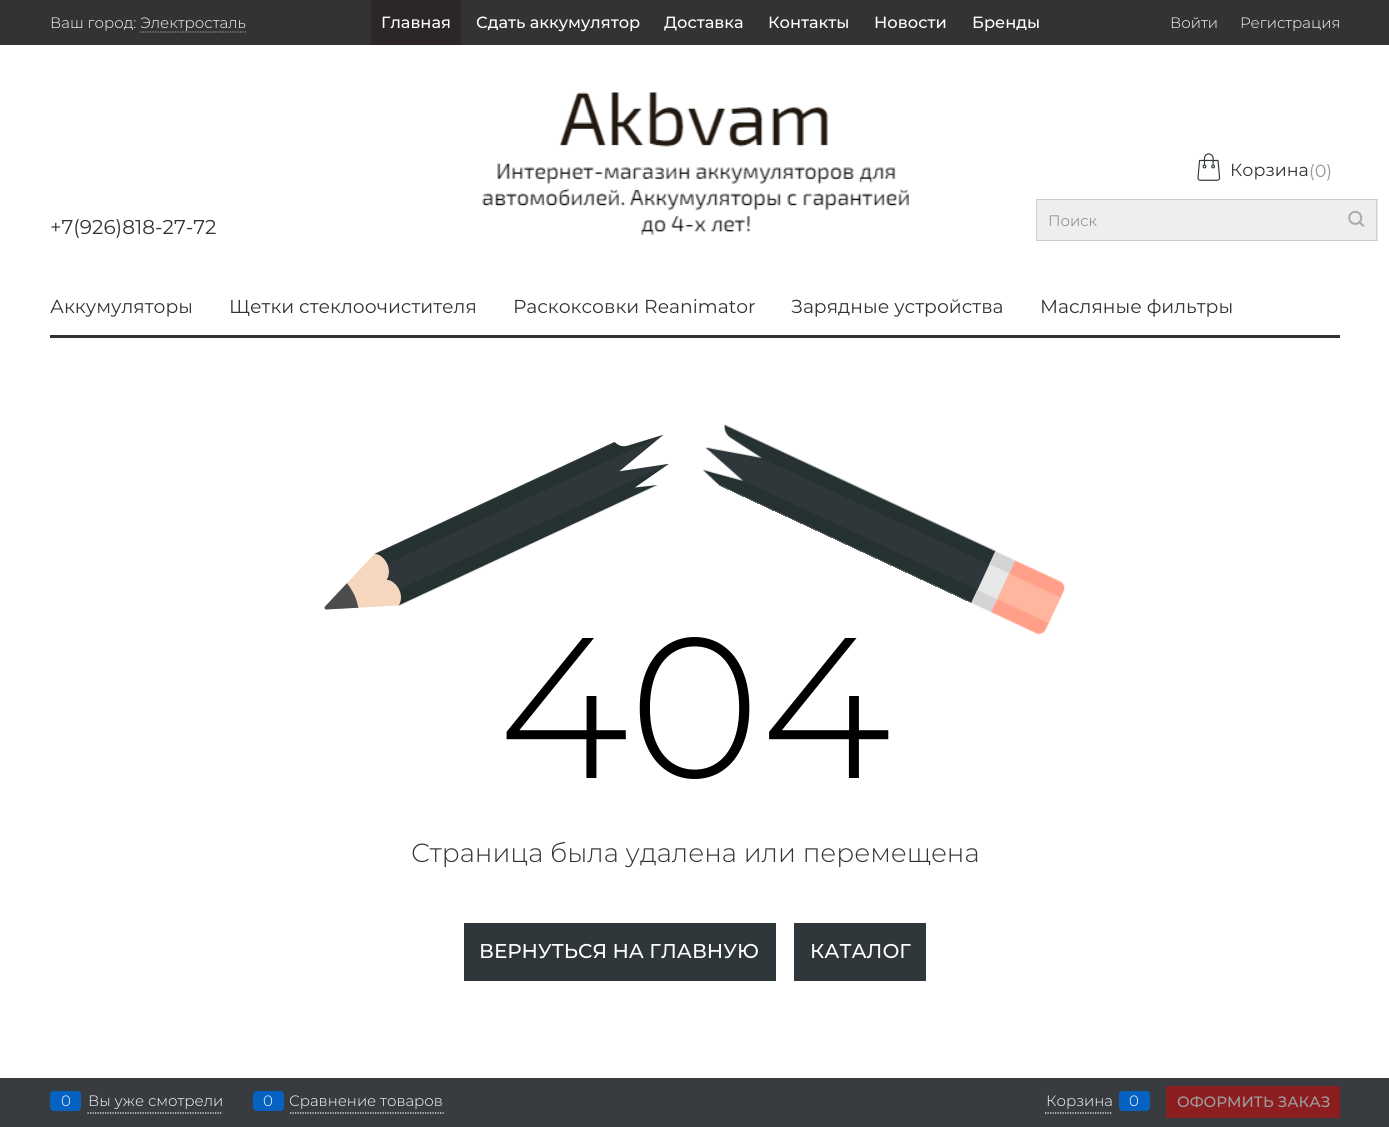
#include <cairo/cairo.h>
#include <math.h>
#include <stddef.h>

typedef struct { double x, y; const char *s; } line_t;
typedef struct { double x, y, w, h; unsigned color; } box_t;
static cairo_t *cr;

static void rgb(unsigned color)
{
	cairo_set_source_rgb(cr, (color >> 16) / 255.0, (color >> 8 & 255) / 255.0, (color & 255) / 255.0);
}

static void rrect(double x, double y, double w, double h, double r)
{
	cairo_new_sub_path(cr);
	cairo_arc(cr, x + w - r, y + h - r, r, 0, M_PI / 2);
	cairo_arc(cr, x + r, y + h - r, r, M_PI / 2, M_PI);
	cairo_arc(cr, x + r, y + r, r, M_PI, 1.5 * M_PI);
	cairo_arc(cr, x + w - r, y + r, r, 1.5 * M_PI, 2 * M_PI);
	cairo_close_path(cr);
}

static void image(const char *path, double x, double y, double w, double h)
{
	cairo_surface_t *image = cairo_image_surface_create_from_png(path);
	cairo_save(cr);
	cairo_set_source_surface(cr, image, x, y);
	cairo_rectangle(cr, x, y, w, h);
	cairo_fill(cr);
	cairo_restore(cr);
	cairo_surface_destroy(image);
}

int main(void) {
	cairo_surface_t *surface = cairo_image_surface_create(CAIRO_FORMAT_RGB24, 1389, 1127);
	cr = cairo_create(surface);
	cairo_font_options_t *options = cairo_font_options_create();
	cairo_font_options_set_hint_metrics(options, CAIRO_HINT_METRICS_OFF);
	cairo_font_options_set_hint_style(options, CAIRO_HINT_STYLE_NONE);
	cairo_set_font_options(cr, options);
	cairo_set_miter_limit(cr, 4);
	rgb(0xffffff);
	cairo_paint(cr);
	rgb(0x333333);
	cairo_rectangle(cr, 0, 0, 1389, 45);
	cairo_fill(cr);
	cairo_new_path(cr);
	cairo_move_to(cr, 140, 32);
	cairo_line_to(cr, 246, 32);
	rgb(0x94969b);
	cairo_set_line_width(cr, 1.2);
	cairo_set_dash(cr, (double[]){1.25, 1.25}, 2, 0);
	cairo_stroke(cr);
	rgb(0x2c2529);
	cairo_rectangle(cr, 371, 0, 90, 45);
	cairo_fill(cr);
	image("img/1.png", 482, 92, 428, 143);
	image("img/2.png", 1197, 153, 24, 28);
	{
		static const box_t items[] = {
			{1037, 200, 341, 40, 0xeeeeee},
			{1036, 199, 342, 1, 0xcccccc},
			{1036, 240, 300, 1, 0xcccccc},
			{1036, 199, 1, 42, 0xcccccc},
			{1376, 199, 1, 42, 0xcccccc},
			{1336, 240, 42, 1, 0xcccccc},
		};
		for (size_t i = 0; i < sizeof items / sizeof *items; i++) {
			rgb(items[i].color);
			cairo_rectangle(cr, items[i].x, items[i].y, items[i].w, items[i].h);
			cairo_fill(cr);
		}
	}
	image("img/3.png", 1348, 210, 17, 17);
	rgb(0x333333);
	cairo_rectangle(cr, 50, 335, 1290, 3);
	cairo_fill(cr);
	image("img/4.png", 324, 424, 741, 211);
	{
		static const box_t items[] = {
			{464, 923, 312, 58, 0x2f373a},
			{794, 923, 132, 58, 0x2f373a},
			{0, 1078, 1389, 49, 0x383c40},
		};
		for (size_t i = 0; i < sizeof items / sizeof *items; i++) {
			rgb(items[i].color);
			cairo_rectangle(cr, items[i].x, items[i].y, items[i].w, items[i].h);
			cairo_fill(cr);
		}
	}
	cairo_new_path(cr);
	cairo_move_to(cr, 87.5, 1113);
	cairo_line_to(cr, 222.5, 1113);
	rgb(0xffffff);
	cairo_stroke(cr);
	rgb(0x0662c1);
	rrect(50, 1091, 31, 20, 4);
	cairo_fill(cr);
	cairo_new_path(cr);
	cairo_move_to(cr, 290, 1113);
	cairo_line_to(cr, 444, 1113);
	rgb(0xffffff);
	cairo_stroke(cr);
	rgb(0x0662c1);
	rrect(253, 1091, 31, 20, 4);
	cairo_fill(cr);
	cairo_new_path(cr);
	cairo_move_to(cr, 1045, 1113);
	cairo_line_to(cr, 1112.5, 1113);
	rgb(0xffffff);
	cairo_stroke(cr);
	rgb(0x0662c1);
	rrect(1119, 1091, 31, 20, 4);
	cairo_fill(cr);
	rgb(0x8d1e20);
	cairo_rectangle(cr, 1166, 1086, 174, 32);
	cairo_fill(cr);
	cairo_select_font_face(cr, "Montserrat Light", CAIRO_FONT_SLANT_NORMAL, CAIRO_FONT_WEIGHT_NORMAL);
	cairo_set_font_size(cr, 15);
	rgb(0xffffff);
	cairo_move_to(cr, 50, 28);
	cairo_show_text(cr, "Ваш город: Электросталь");
	cairo_select_font_face(cr, "Montserrat Medium", CAIRO_FONT_SLANT_NORMAL, CAIRO_FONT_WEIGHT_NORMAL);
	cairo_set_font_size(cr, 16.25);
	{
		static const line_t items[] = {
			{381, 28, "Главная"},
			{476, 28, "Сдать аккумулятор"},
			{664, 28, "Доставка"},
			{768, 28, "Контакты"},
			{874, 28, "Новости"},
			{972, 28, "Бренды"},
		};
		for (size_t i = 0; i < sizeof items / sizeof *items; i++) {
			cairo_move_to(cr, items[i].x, items[i].y);
			cairo_show_text(cr, items[i].s);
		}
	}
	cairo_select_font_face(cr, "Montserrat Light", CAIRO_FONT_SLANT_NORMAL, CAIRO_FONT_WEIGHT_NORMAL);
	cairo_set_font_size(cr, 15);
	cairo_move_to(cr, 1170, 28);
	cairo_show_text(cr, "Войти");
	cairo_move_to(cr, 1240, 28);
	cairo_show_text(cr, "Регистрация");
	cairo_select_font_face(cr, "Montserrat", CAIRO_FONT_SLANT_NORMAL, CAIRO_FONT_WEIGHT_NORMAL);
	cairo_set_font_size(cr, 20);
	rgb(0x333333);
	cairo_move_to(cr, 50, 234);
	cairo_show_text(cr, "+7(926)818-27-72");
	cairo_set_font_size(cr, 17.5);
	cairo_move_to(cr, 1230, 176);
	cairo_show_text(cr, "Корзина");
	rgb(0x94969b);
	cairo_move_to(cr, 1309, 177);
	cairo_show_text(cr, "(0)");
	cairo_select_font_face(cr, "Montserrat Light", CAIRO_FONT_SLANT_NORMAL, CAIRO_FONT_WEIGHT_NORMAL);
	cairo_set_font_size(cr, 15);
	rgb(0x757575);
	cairo_move_to(cr, 1048, 226);
	cairo_show_text(cr, "Поиск");
	cairo_select_font_face(cr, "Montserrat", CAIRO_FONT_SLANT_NORMAL, CAIRO_FONT_WEIGHT_NORMAL);
	cairo_set_font_size(cr, 18.75);
	rgb(0x333333);
	{
		static const line_t items[] = {
			{50, 313, "Аккумуляторы"},
			{229, 313, "Щетки стеклоочистителя"},
			{513, 313, "Раскоксовки Reanimator"},
			{791, 313, "Зарядные устройства"},
			{1040, 313, "Масляные фильтры"},
		};
		for (size_t i = 0; i < sizeof items / sizeof *items; i++) {
			cairo_move_to(cr, items[i].x, items[i].y);
			cairo_show_text(cr, items[i].s);
		}
	}
	cairo_select_font_face(cr, "Montserrat Light", CAIRO_FONT_SLANT_NORMAL, CAIRO_FONT_WEIGHT_NORMAL);
	cairo_set_font_size(cr, 200);
	rgb(0x000000);
	cairo_move_to(cr, 498, 778);
	cairo_show_text(cr, "404");
	cairo_set_font_size(cr, 26.25);
	rgb(0x333333);
	cairo_move_to(cr, 411, 862);
	cairo_show_text(cr, "Страница была удалена или перемещена");
	cairo_select_font_face(cr, "Montserrat Medium", CAIRO_FONT_SLANT_NORMAL, CAIRO_FONT_WEIGHT_NORMAL);
	cairo_set_font_size(cr, 20);
	rgb(0xffffff);
	cairo_move_to(cr, 479, 958);
	cairo_show_text(cr, "ВЕРНУТЬСЯ НА ГЛАВНУЮ");
	cairo_move_to(cr, 810, 958);
	cairo_show_text(cr, "КАТАЛОГ");
	cairo_select_font_face(cr, "Montserrat Light", CAIRO_FONT_SLANT_NORMAL, CAIRO_FONT_WEIGHT_NORMAL);
	cairo_set_font_size(cr, 15);
	{
		static const line_t items[] = {
			{61, 1106, "0"},
			{88, 1106, "Вы уже смотрели"},
			{263, 1106, "0"},
			{289, 1106, "Сравнение товаров"},
			{1046, 1106, "Корзина"},
			{1129, 1106, "0"},
		};
		for (size_t i = 0; i < sizeof items / sizeof *items; i++) {
			cairo_move_to(cr, items[i].x, items[i].y);
			cairo_show_text(cr, items[i].s);
		}
	}
	cairo_select_font_face(cr, "Montserrat Medium", CAIRO_FONT_SLANT_NORMAL, CAIRO_FONT_WEIGHT_NORMAL);
	rgb(0x9c9ea0);
	cairo_move_to(cr, 1177, 1107);
	cairo_show_text(cr, "ОФОРМИТЬ ЗАКАЗ");
	cairo_surface_write_to_png(surface, "page.png");
	cairo_font_options_destroy(options);
	cairo_destroy(cr);
	cairo_surface_destroy(surface);
	return 0;
}
